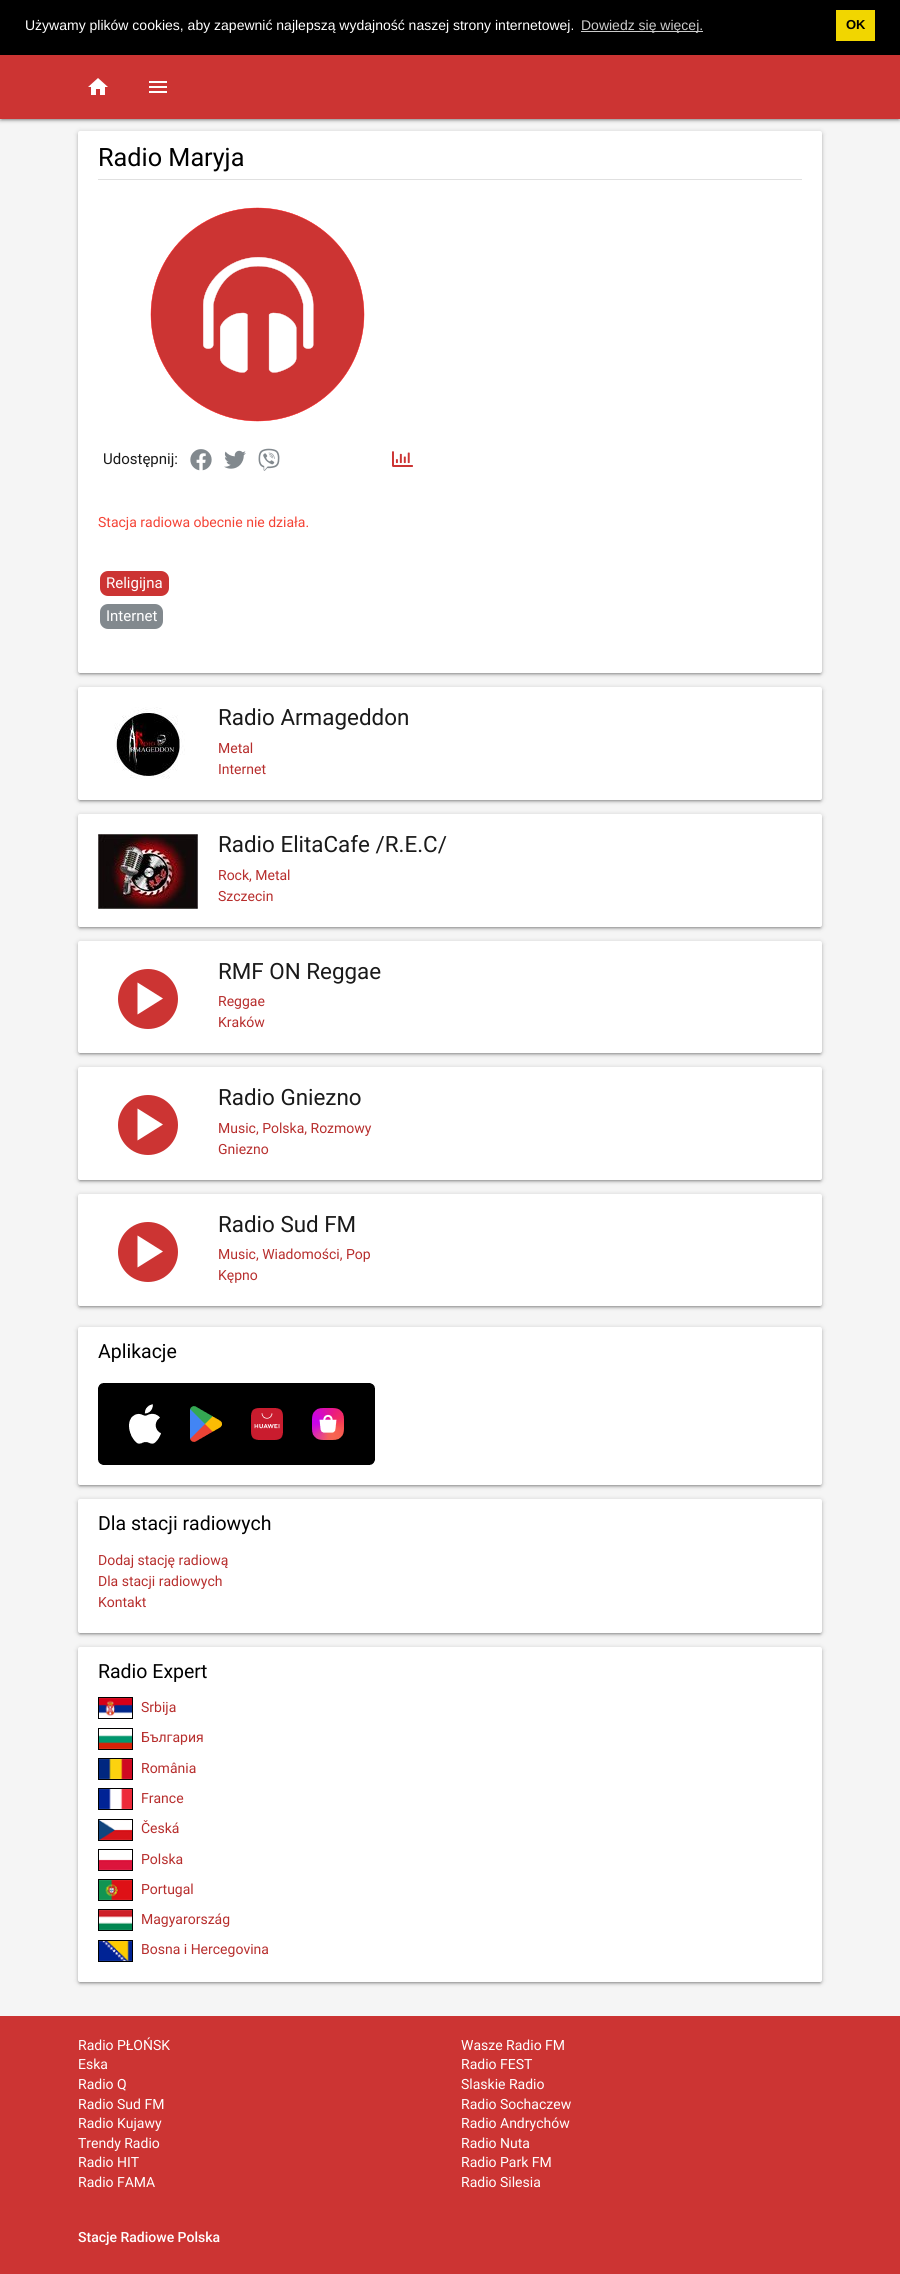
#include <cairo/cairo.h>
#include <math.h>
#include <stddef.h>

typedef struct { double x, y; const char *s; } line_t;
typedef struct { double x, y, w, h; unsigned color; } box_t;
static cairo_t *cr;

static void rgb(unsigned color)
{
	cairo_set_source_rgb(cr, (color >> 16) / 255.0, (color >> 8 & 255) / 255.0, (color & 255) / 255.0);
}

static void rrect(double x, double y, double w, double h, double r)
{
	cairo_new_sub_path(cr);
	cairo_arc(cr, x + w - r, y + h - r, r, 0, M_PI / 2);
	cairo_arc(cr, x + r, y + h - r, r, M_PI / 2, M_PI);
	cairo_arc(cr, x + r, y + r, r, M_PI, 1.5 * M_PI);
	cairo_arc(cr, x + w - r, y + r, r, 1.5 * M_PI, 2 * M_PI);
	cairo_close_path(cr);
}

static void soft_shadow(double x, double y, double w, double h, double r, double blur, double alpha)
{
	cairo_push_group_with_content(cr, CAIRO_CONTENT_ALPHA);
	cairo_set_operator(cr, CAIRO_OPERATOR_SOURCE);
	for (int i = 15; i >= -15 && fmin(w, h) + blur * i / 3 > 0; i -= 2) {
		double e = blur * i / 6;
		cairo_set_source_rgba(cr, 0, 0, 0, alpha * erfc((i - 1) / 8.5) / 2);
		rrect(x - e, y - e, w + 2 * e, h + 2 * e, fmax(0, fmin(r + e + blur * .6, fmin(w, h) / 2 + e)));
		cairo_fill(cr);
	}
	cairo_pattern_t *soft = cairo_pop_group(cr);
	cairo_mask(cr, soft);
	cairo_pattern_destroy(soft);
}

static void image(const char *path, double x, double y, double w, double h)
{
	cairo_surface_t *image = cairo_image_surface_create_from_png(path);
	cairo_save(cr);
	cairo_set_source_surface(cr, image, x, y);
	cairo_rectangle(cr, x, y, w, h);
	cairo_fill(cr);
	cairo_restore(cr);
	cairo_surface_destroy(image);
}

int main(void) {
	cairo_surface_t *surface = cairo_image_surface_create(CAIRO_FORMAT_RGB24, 900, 2274);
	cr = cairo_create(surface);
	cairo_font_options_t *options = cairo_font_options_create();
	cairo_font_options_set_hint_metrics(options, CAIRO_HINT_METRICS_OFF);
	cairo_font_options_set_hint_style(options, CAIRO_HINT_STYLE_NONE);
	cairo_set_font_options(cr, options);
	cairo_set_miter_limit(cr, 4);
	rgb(0xf5f5f5);
	cairo_paint(cr);
	rgb(0x000000);
	soft_shadow(0, 56, 900, 64, 0, 2.5, 0.2);
	soft_shadow(0, 57, 900, 64, 0, 1, 0.14);
	{
		static const box_t items[] = {
			{0, 0, 900, 55, 0x000000},
			{581, 31, 122, 1, 0xcccccc},
			{836, 10, 39, 31, 0xf1d600},
		};
		for (size_t i = 0; i < sizeof items / sizeof *items; i++) {
			rgb(items[i].color);
			cairo_rectangle(cr, items[i].x, items[i].y, items[i].w, items[i].h);
			cairo_fill(cr);
		}
	}
	rgb(0x000000);
	soft_shadow(2, 60, 896, 60, 0, 0.5, 0.12);
	rgb(0xcc3433);
	cairo_rectangle(cr, 0, 55, 900, 64);
	cairo_fill(cr);
	image("img/1.png", 88, 78, 20, 17);
	image("img/2.png", 149, 81, 18, 12);
	rgb(0x000000);
	soft_shadow(78, 132, 744, 542, 2, 2.5, 0.2);
	soft_shadow(80, 136, 740, 538, 0, 0.5, 0.12);
	soft_shadow(78, 133, 744, 542, 2, 1, 0.14);
	rgb(0xffffff);
	rrect(78, 131, 744, 542, 2);
	cairo_fill(cr);
	rgb(0xe0e0e0);
	cairo_rectangle(cr, 98, 179, 704, 1);
	cairo_fill(cr);
	image("img/3.png", 150, 207, 215, 215);
	image("img/4.png", 190, 449, 22, 22);
	image("img/5.png", 224, 450, 22, 19);
	image("img/6.png", 258, 448, 22, 23);
	image("img/7.png", 392, 451, 21, 16);
	rgb(0xcc3433);
	rrect(100, 571, 69, 25, 8);
	cairo_fill(cr);
	rgb(0x82898e);
	rrect(100, 604, 63, 25, 8);
	cairo_fill(cr);
	rgb(0x000000);
	soft_shadow(78, 688, 744, 113, 2, 2.5, 0.2);
	soft_shadow(80, 692, 740, 109, 0, 0.5, 0.12);
	soft_shadow(78, 689, 744, 113, 2, 1, 0.14);
	rgb(0xffffff);
	rrect(78, 687, 744, 113, 2);
	cairo_fill(cr);
	image("img/8.png", 114, 707, 71, 72);
	rgb(0x000000);
	soft_shadow(78, 815, 744, 113, 2, 2.5, 0.2);
	soft_shadow(80, 819, 740, 109, 0, 0.5, 0.12);
	soft_shadow(78, 816, 744, 113, 2, 1, 0.14);
	rgb(0xffffff);
	rrect(78, 814, 744, 113, 2);
	cairo_fill(cr);
	image("img/9.png", 98, 834, 100, 75);
	rgb(0x000000);
	soft_shadow(78, 942, 744, 112, 2, 2.5, 0.2);
	soft_shadow(80, 946, 740, 108, 0, 0.5, 0.12);
	soft_shadow(78, 943, 744, 112, 2, 1, 0.14);
	rgb(0xffffff);
	rrect(78, 941, 744, 112, 2);
	cairo_fill(cr);
	rgb(0xcc3433);
	cairo_arc(cr, 148, 999, 30, 0, 2 * M_PI);
	cairo_fill(cr);
	rgb(0xffffff);
	cairo_new_path(cr);
	cairo_move_to(cr, 163, 998.5);
	cairo_line_to(cr, 137.5, 1014.5);
	cairo_line_to(cr, 137.5, 982.5);
	cairo_close_path(cr);
	cairo_fill(cr);
	rgb(0x000000);
	soft_shadow(78, 1068, 744, 113, 2, 2.5, 0.2);
	soft_shadow(80, 1072, 740, 109, 0, 0.5, 0.12);
	soft_shadow(78, 1069, 744, 113, 2, 1, 0.14);
	rgb(0xffffff);
	rrect(78, 1067, 744, 113, 2);
	cairo_fill(cr);
	rgb(0xcc3433);
	cairo_arc(cr, 148, 1125, 30, 0, 2 * M_PI);
	cairo_fill(cr);
	rgb(0xffffff);
	cairo_new_path(cr);
	cairo_move_to(cr, 163, 1124.5);
	cairo_line_to(cr, 137.5, 1140.5);
	cairo_line_to(cr, 137.5, 1108.5);
	cairo_close_path(cr);
	cairo_fill(cr);
	rgb(0x000000);
	soft_shadow(78, 1195, 744, 112, 2, 2.5, 0.2);
	soft_shadow(80, 1199, 740, 108, 0, 0.5, 0.12);
	soft_shadow(78, 1196, 744, 112, 2, 1, 0.14);
	rgb(0xffffff);
	rrect(78, 1194, 744, 112, 2);
	cairo_fill(cr);
	rgb(0xcc3433);
	cairo_arc(cr, 148, 1252, 30, 0, 2 * M_PI);
	cairo_fill(cr);
	rgb(0xffffff);
	cairo_new_path(cr);
	cairo_move_to(cr, 163, 1251.5);
	cairo_line_to(cr, 137.5, 1267.5);
	cairo_line_to(cr, 137.5, 1235.5);
	cairo_close_path(cr);
	cairo_fill(cr);
	rgb(0x000000);
	soft_shadow(78, 1328, 744, 158, 2, 2.5, 0.2);
	soft_shadow(80, 1332, 740, 154, 0, 0.5, 0.12);
	soft_shadow(78, 1329, 744, 158, 2, 1, 0.14);
	rgb(0xffffff);
	rrect(78, 1327, 744, 158, 2);
	cairo_fill(cr);
	image("img/10.png", 98, 1383, 277, 82);
	rgb(0x000000);
	soft_shadow(78, 1500, 744, 134, 2, 2.5, 0.2);
	soft_shadow(80, 1504, 740, 130, 0, 0.5, 0.12);
	soft_shadow(78, 1501, 744, 134, 2, 1, 0.14);
	rgb(0xffffff);
	rrect(78, 1499, 744, 134, 2);
	cairo_fill(cr);
	rgb(0x000000);
	soft_shadow(78, 1648, 744, 335, 2, 2.5, 0.2);
	soft_shadow(80, 1652, 740, 331, 0, 0.5, 0.12);
	soft_shadow(78, 1649, 744, 335, 2, 1, 0.14);
	rgb(0xffffff);
	rrect(78, 1647, 744, 335, 2);
	cairo_fill(cr);
	cairo_rectangle(cr, 98.5, 1697.5, 34, 21);
	rgb(0x000000);
	cairo_set_line_width(cr, 1);
	cairo_stroke(cr);
	image("img/11.png", 99, 1698, 33, 19);
	cairo_rectangle(cr, 98.5, 1728.5, 34, 21);
	cairo_stroke(cr);
	image("img/12.png", 99, 1729, 33, 20);
	cairo_rectangle(cr, 98.5, 1758.5, 34, 21);
	cairo_stroke(cr);
	image("img/13.png", 99, 1759, 33, 20);
	cairo_rectangle(cr, 98.5, 1788.5, 34, 21);
	cairo_stroke(cr);
	image("img/14.png", 99, 1789, 33, 20);
	cairo_rectangle(cr, 98.5, 1819.5, 34, 21);
	cairo_stroke(cr);
	image("img/15.png", 99, 1820, 33, 20);
	cairo_rectangle(cr, 98.5, 1849.5, 34, 21);
	cairo_stroke(cr);
	image("img/16.png", 99, 1859, 33, 11);
	cairo_rectangle(cr, 98.5, 1879.5, 34, 21);
	cairo_stroke(cr);
	image("img/17.png", 99, 1880, 33, 20);
	cairo_rectangle(cr, 98.5, 1909.5, 34, 21);
	cairo_stroke(cr);
	image("img/18.png", 99, 1910, 33, 20);
	cairo_rectangle(cr, 98.5, 1940.5, 34, 21);
	cairo_stroke(cr);
	image("img/19.png", 99, 1941, 33, 20);
	rgb(0xcc3433);
	cairo_rectangle(cr, 0, 2016, 900, 258);
	cairo_fill(cr);
	cairo_select_font_face(cr, "Liberation Sans", CAIRO_FONT_SLANT_NORMAL, CAIRO_FONT_WEIGHT_NORMAL);
	cairo_set_font_size(cr, 14);
	rgb(0xffffff);
	cairo_move_to(cr, 25, 30);
	cairo_show_text(cr, "Używamy plików cookies, aby zapewnić najlepszą wydajność naszej strony internetowej.");
	rgb(0xcccccc);
	cairo_move_to(cr, 581, 30);
	cairo_show_text(cr, "Dowiedz się więcej.");
	cairo_select_font_face(cr, "Liberation Sans", CAIRO_FONT_SLANT_NORMAL, CAIRO_FONT_WEIGHT_BOLD);
	cairo_set_font_size(cr, 13);
	rgb(0x000000);
	cairo_move_to(cr, 846, 29);
	cairo_show_text(cr, "OK");
	cairo_select_font_face(cr, "Roboto", CAIRO_FONT_SLANT_NORMAL, CAIRO_FONT_WEIGHT_NORMAL);
	cairo_set_font_size(cr, 25.25);
	cairo_move_to(cr, 98, 166);
	cairo_show_text(cr, "Radio Maryja");
	cairo_set_font_size(cr, 15);
	rgb(0x1a1a1a);
	cairo_move_to(cr, 103, 464);
	cairo_show_text(cr, "Udostępnij:");
	cairo_set_font_size(cr, 14);
	rgb(0xf44336);
	cairo_move_to(cr, 98, 527);
	cairo_show_text(cr, "Stacja radiowa obecnie nie działa.");
	cairo_set_font_size(cr, 15);
	rgb(0xffffff);
	cairo_move_to(cr, 106, 588);
	cairo_show_text(cr, "Religijna");
	cairo_move_to(cr, 106, 621);
	cairo_show_text(cr, "Internet");
	cairo_set_font_size(cr, 22.4);
	rgb(0x1a1a1a);
	cairo_move_to(cr, 218, 725);
	cairo_show_text(cr, "Radio Armageddon");
	cairo_set_font_size(cr, 14);
	rgb(0xb72e2d);
	cairo_move_to(cr, 218, 753);
	cairo_show_text(cr, "Metal");
	cairo_move_to(cr, 218, 774);
	cairo_show_text(cr, "Internet");
	cairo_set_font_size(cr, 22.4);
	rgb(0x1a1a1a);
	cairo_move_to(cr, 218, 852);
	cairo_show_text(cr, "Radio ElitaCafe /R.E.C/");
	cairo_set_font_size(cr, 14);
	rgb(0xb72e2d);
	cairo_move_to(cr, 218, 880);
	cairo_show_text(cr, "Rock, Metal");
	cairo_move_to(cr, 218, 901);
	cairo_show_text(cr, "Szczecin");
	cairo_set_font_size(cr, 22.4);
	rgb(0x1a1a1a);
	cairo_move_to(cr, 218, 979);
	cairo_show_text(cr, "RMF ON Reggae");
	cairo_set_font_size(cr, 14);
	rgb(0xb72e2d);
	cairo_move_to(cr, 218, 1006);
	cairo_show_text(cr, "Reggae");
	cairo_move_to(cr, 218, 1027);
	cairo_show_text(cr, "Kraków");
	cairo_set_font_size(cr, 22.4);
	rgb(0x1a1a1a);
	cairo_move_to(cr, 218, 1105);
	cairo_show_text(cr, "Radio Gniezno");
	cairo_set_font_size(cr, 14);
	rgb(0xb72e2d);
	cairo_move_to(cr, 218, 1133);
	cairo_show_text(cr, "Music, Polska, Rozmowy");
	cairo_move_to(cr, 218, 1154);
	cairo_show_text(cr, "Gniezno");
	cairo_set_font_size(cr, 22.4);
	rgb(0x1a1a1a);
	cairo_move_to(cr, 218, 1232);
	cairo_show_text(cr, "Radio Sud FM");
	cairo_set_font_size(cr, 14);
	rgb(0xb72e2d);
	cairo_move_to(cr, 218, 1259);
	cairo_show_text(cr, "Music, Wiadomości, Pop");
	cairo_move_to(cr, 218, 1280);
	cairo_show_text(cr, "Kępno");
	cairo_set_font_size(cr, 19.5);
	rgb(0x000000);
	cairo_move_to(cr, 98, 1358);
	cairo_show_text(cr, "Aplikacje");
	cairo_move_to(cr, 98, 1530);
	cairo_show_text(cr, "Dla stacji radiowych");
	cairo_set_font_size(cr, 14);
	rgb(0xb72e2d);
	{
		static const line_t items[] = {
			{98, 1565, "Dodaj stację radiową"},
			{98, 1586, "Dla stacji radiowych"},
			{98, 1607, "Kontakt"},
		};
		for (size_t i = 0; i < sizeof items / sizeof *items; i++) {
			cairo_move_to(cr, items[i].x, items[i].y);
			cairo_show_text(cr, items[i].s);
		}
	}
	cairo_set_font_size(cr, 19.5);
	rgb(0x000000);
	cairo_move_to(cr, 98, 1678);
	cairo_show_text(cr, "Radio Expert");
	cairo_set_font_size(cr, 14);
	rgb(0xb72e2d);
	{
		static const line_t items[] = {
			{141, 1712, "Srbija"},
			{141, 1742, "България"},
			{141, 1773, "România"},
			{141, 1803, "France"},
			{141, 1833, "Česká"},
			{141, 1864, "Polska"},
			{141, 1894, "Portugal"},
			{141, 1924, "Magyarország"},
			{141, 1954, "Bosna i Hercegovina"},
		};
		for (size_t i = 0; i < sizeof items / sizeof *items; i++) {
			cairo_move_to(cr, items[i].x, items[i].y);
			cairo_show_text(cr, items[i].s);
		}
	}
	rgb(0xffffff);
	{
		static const line_t items[] = {
			{78, 2050, "Radio PŁOŃSK"},
			{78, 2069, "Eska"},
			{78, 2089, "Radio Q"},
			{78, 2109, "Radio Sud FM"},
			{461, 2050, "Wasze Radio FM"},
			{461, 2069, "Radio FEST"},
			{461, 2089, "Slaskie Radio"},
			{461, 2109, "Radio Sochaczew"},
			{78, 2128, "Radio Kujawy"},
			{78, 2148, "Trendy Radio"},
			{78, 2167, "Radio HIT"},
			{78, 2187, "Radio FAMA"},
			{461, 2128, "Radio Andrychów"},
			{461, 2148, "Radio Nuta"},
			{461, 2167, "Radio Park FM"},
			{461, 2187, "Radio Silesia"},
		};
		for (size_t i = 0; i < sizeof items / sizeof *items; i++) {
			cairo_move_to(cr, items[i].x, items[i].y);
			cairo_show_text(cr, items[i].s);
		}
	}
	cairo_select_font_face(cr, "Roboto Medium", CAIRO_FONT_SLANT_NORMAL, CAIRO_FONT_WEIGHT_NORMAL);
	cairo_move_to(cr, 78, 2242);
	cairo_show_text(cr, "Stacje Radiowe Polska");
	cairo_surface_write_to_png(surface, "page.png");
	cairo_font_options_destroy(options);
	cairo_destroy(cr);
	cairo_surface_destroy(surface);
	return 0;
}
